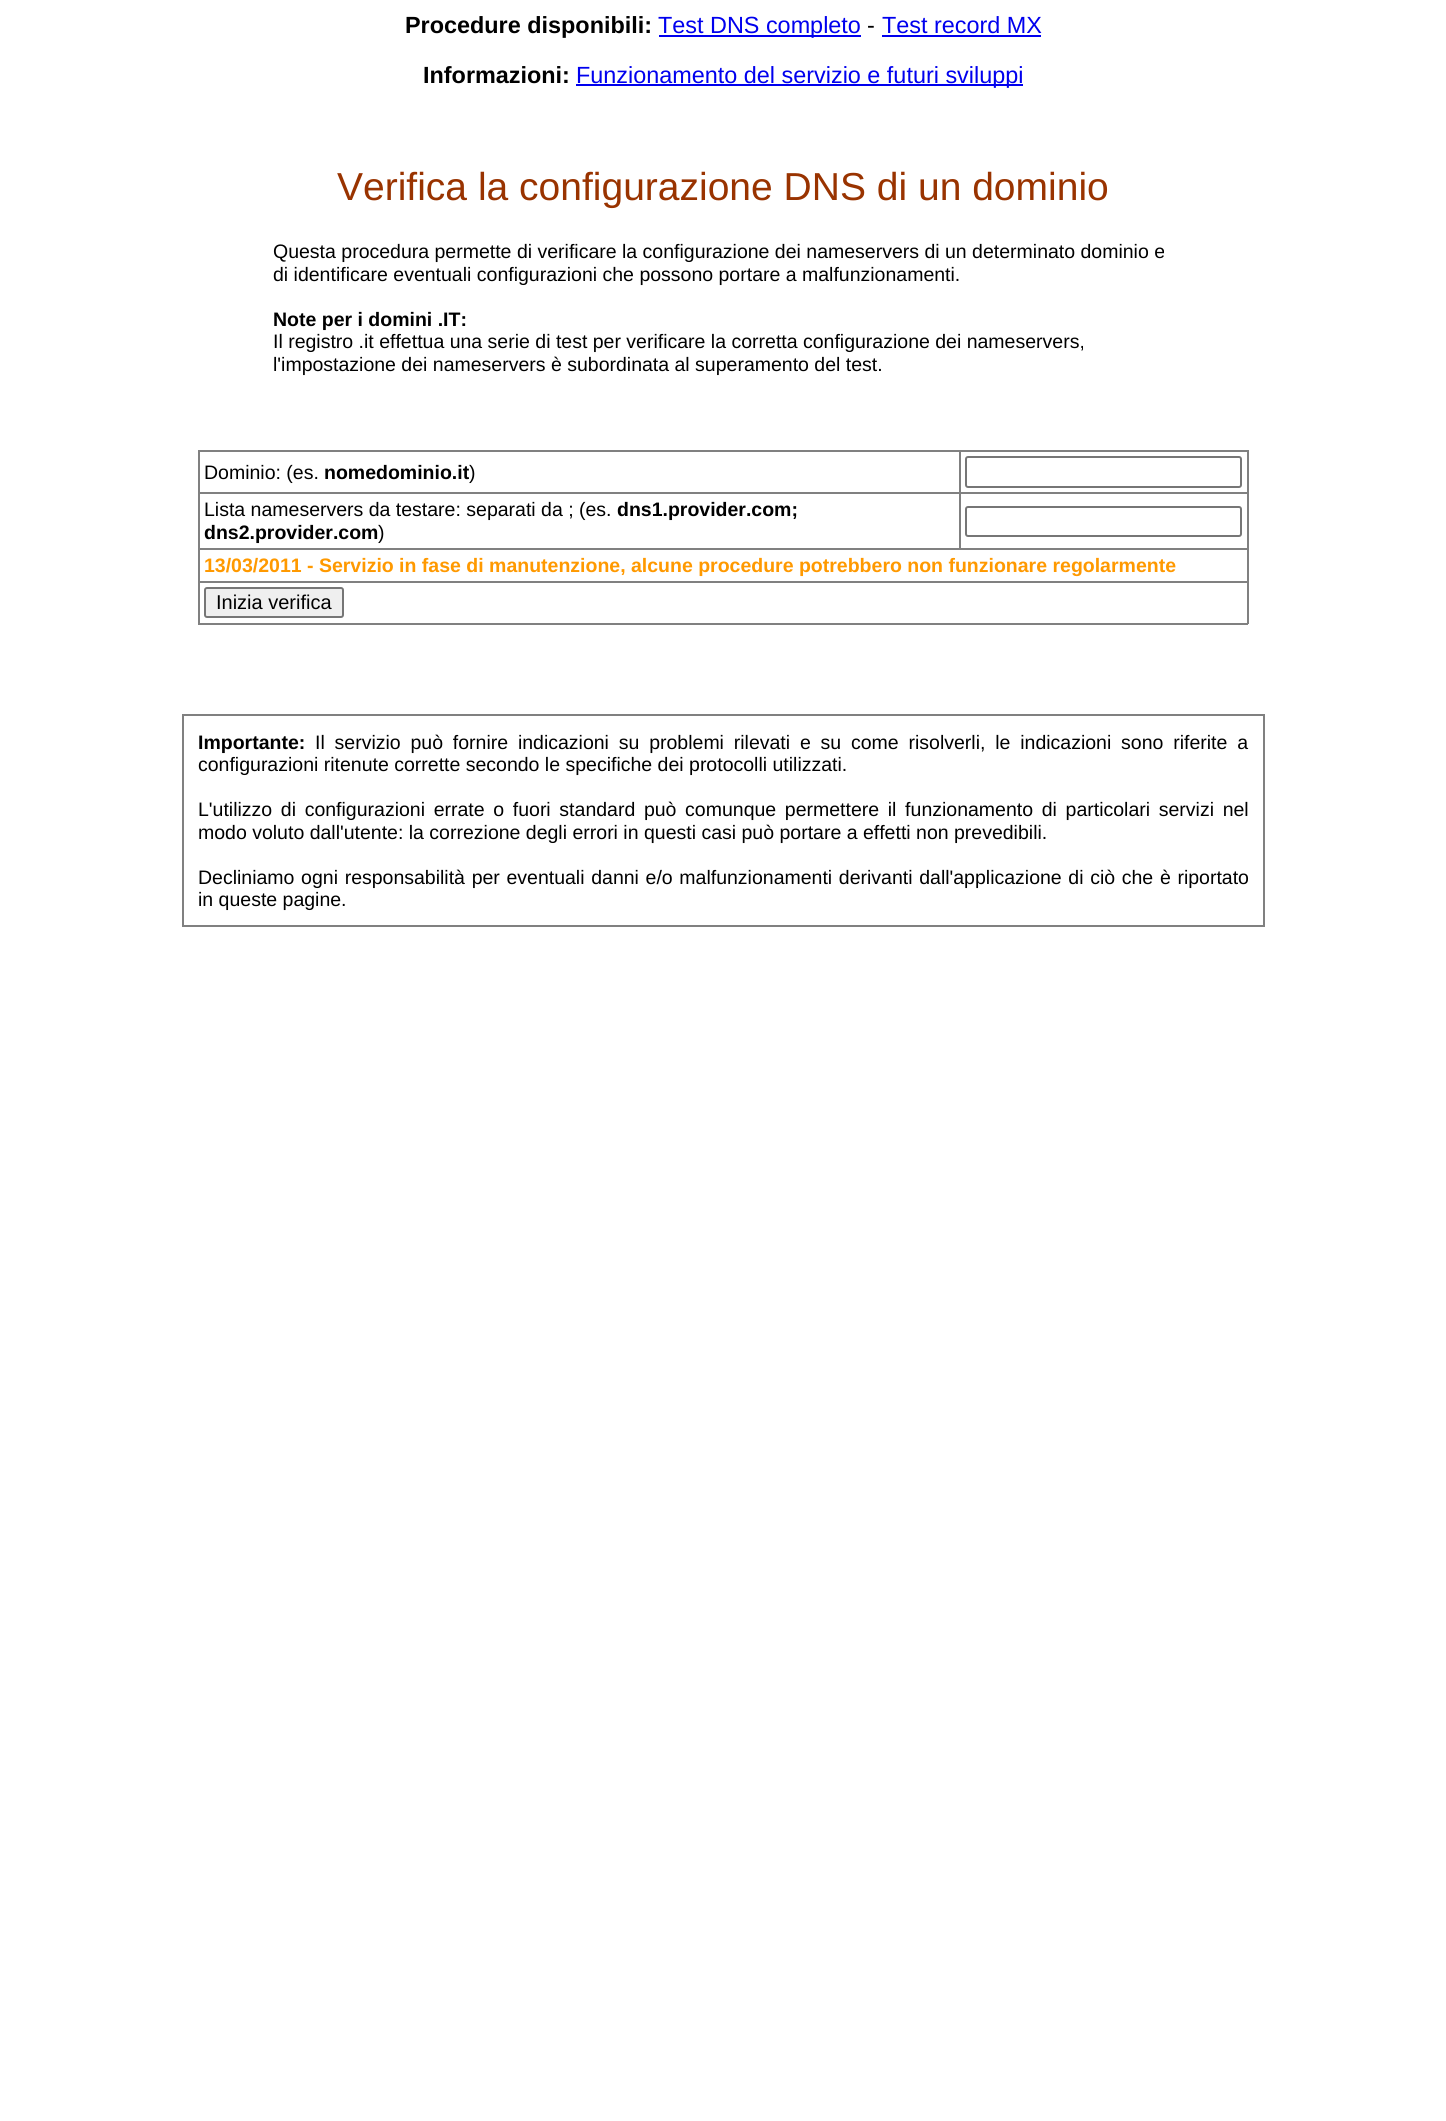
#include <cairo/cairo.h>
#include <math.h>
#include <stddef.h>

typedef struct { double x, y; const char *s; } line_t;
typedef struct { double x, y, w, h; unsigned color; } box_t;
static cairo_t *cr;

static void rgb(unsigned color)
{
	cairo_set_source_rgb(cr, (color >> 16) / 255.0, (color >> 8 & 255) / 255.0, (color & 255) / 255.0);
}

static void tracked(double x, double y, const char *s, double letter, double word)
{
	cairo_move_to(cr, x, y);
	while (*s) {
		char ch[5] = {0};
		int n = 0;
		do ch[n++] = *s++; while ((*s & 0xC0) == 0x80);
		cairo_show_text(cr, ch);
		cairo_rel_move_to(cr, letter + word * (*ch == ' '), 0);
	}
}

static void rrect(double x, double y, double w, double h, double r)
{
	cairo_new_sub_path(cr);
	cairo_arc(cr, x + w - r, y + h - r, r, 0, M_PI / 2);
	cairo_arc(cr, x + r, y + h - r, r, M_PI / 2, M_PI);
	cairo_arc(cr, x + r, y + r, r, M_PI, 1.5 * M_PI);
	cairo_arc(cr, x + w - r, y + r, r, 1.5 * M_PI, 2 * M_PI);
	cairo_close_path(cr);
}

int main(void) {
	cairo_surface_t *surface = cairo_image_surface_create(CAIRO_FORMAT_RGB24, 1446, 2121);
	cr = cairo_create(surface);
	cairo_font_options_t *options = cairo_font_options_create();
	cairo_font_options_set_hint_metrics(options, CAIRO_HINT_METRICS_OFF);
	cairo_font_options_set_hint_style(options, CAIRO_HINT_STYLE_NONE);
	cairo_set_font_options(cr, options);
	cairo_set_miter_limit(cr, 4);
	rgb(0xffffff);
	cairo_paint(cr);
	{
		static const box_t items[] = {
			{659, 35, 202, 2, 0x0000ee},
			{882, 35, 159, 2, 0x0000ee},
			{576, 84, 447, 2, 0x0000ee},
			{198, 450, 1050, 2, 0x808080},
			{1247, 450, 2, 174, 0x808080},
			{198, 623, 1050, 2, 0x808080},
			{198, 450, 2, 174, 0x808080},
			{959, 492, 289, 2, 0x808080},
			{198, 548, 1050, 2, 0x808080},
			{959, 492, 2, 57, 0x808080},
			{198, 492, 762, 2, 0x808080},
			{959, 450, 2, 44, 0x808080},
		};
		for (size_t i = 0; i < sizeof items / sizeof *items; i++) {
			rgb(items[i].color);
			cairo_rectangle(cr, items[i].x, items[i].y, items[i].w, items[i].h);
			cairo_fill(cr);
		}
	}
	rrect(966, 457, 275, 30, 2);
	rgb(0x767676);
	cairo_stroke(cr);
	rrect(966, 507, 275, 29, 2);
	cairo_stroke(cr);
	rgb(0x808080);
	cairo_rectangle(cr, 198, 581, 1050, 2);
	cairo_fill(cr);
	rgb(0xefefef);
	rrect(205, 588, 138, 29, 2);
	cairo_fill_preserve(cr);
	rgb(0x767676);
	cairo_stroke(cr);
	cairo_rectangle(cr, 183, 715, 1081, 211);
	rgb(0x808080);
	cairo_stroke(cr);
	cairo_select_font_face(cr, "Liberation Sans", CAIRO_FONT_SLANT_NORMAL, CAIRO_FONT_WEIGHT_BOLD);
	cairo_set_font_size(cr, 23.4);
	rgb(0x000000);
	cairo_move_to(cr, 405, 33);
	cairo_show_text(cr, "Procedure disponibili:");
	cairo_select_font_face(cr, "Liberation Sans", CAIRO_FONT_SLANT_NORMAL, CAIRO_FONT_WEIGHT_NORMAL);
	rgb(0x0000ee);
	cairo_move_to(cr, 658, 33);
	cairo_show_text(cr, "Test DNS completo");
	rgb(0x000000);
	cairo_move_to(cr, 867, 33);
	cairo_show_text(cr, "-");
	rgb(0x0000ee);
	cairo_move_to(cr, 882, 33);
	cairo_show_text(cr, "Test record MX");
	cairo_select_font_face(cr, "Liberation Sans", CAIRO_FONT_SLANT_NORMAL, CAIRO_FONT_WEIGHT_BOLD);
	rgb(0x000000);
	cairo_move_to(cr, 423, 83);
	cairo_show_text(cr, "Informazioni:");
	cairo_select_font_face(cr, "Liberation Sans", CAIRO_FONT_SLANT_NORMAL, CAIRO_FONT_WEIGHT_NORMAL);
	rgb(0x0000ee);
	cairo_move_to(cr, 576, 83);
	cairo_show_text(cr, "Funzionamento del servizio e futuri sviluppi");
	cairo_set_font_size(cr, 39);
	rgb(0x993300);
	cairo_move_to(cr, 337, 200);
	cairo_show_text(cr, "Verifica la configurazione DNS di un dominio");
	cairo_set_font_size(cr, 19.5);
	rgb(0x000000);
	cairo_move_to(cr, 273, 258);
	cairo_show_text(cr, "Questa procedura permette di verificare la configurazione dei nameservers di un determinato dominio e");
	cairo_move_to(cr, 273, 281);
	cairo_show_text(cr, "di identificare eventuali configurazioni che possono portare a malfunzionamenti.");
	cairo_select_font_face(cr, "Liberation Sans", CAIRO_FONT_SLANT_NORMAL, CAIRO_FONT_WEIGHT_BOLD);
	cairo_move_to(cr, 273, 326);
	cairo_show_text(cr, "Note per i domini .IT:");
	cairo_select_font_face(cr, "Liberation Sans", CAIRO_FONT_SLANT_NORMAL, CAIRO_FONT_WEIGHT_NORMAL);
	{
		static const line_t items[] = {
			{273, 348, "Il registro .it effettua una serie di test per verificare la corretta configurazione dei nameservers,"},
			{273, 371, "l'impostazione dei nameservers è subordinata al superamento del test."},
			{204, 479, "Dominio: (es."},
		};
		for (size_t i = 0; i < sizeof items / sizeof *items; i++) {
			cairo_move_to(cr, items[i].x, items[i].y);
			cairo_show_text(cr, items[i].s);
		}
	}
	cairo_select_font_face(cr, "Liberation Sans", CAIRO_FONT_SLANT_NORMAL, CAIRO_FONT_WEIGHT_BOLD);
	cairo_move_to(cr, 324, 479);
	cairo_show_text(cr, "nomedominio.it");
	cairo_select_font_face(cr, "Liberation Sans", CAIRO_FONT_SLANT_NORMAL, CAIRO_FONT_WEIGHT_NORMAL);
	cairo_move_to(cr, 469, 479);
	cairo_show_text(cr, ")");
	cairo_move_to(cr, 204, 516);
	cairo_show_text(cr, "Lista nameservers da testare: separati da ; (es.");
	cairo_select_font_face(cr, "Liberation Sans", CAIRO_FONT_SLANT_NORMAL, CAIRO_FONT_WEIGHT_BOLD);
	cairo_move_to(cr, 617, 516);
	cairo_show_text(cr, "dns1.provider.com;");
	cairo_move_to(cr, 204, 539);
	cairo_show_text(cr, "dns2.provider.com");
	cairo_select_font_face(cr, "Liberation Sans", CAIRO_FONT_SLANT_NORMAL, CAIRO_FONT_WEIGHT_NORMAL);
	cairo_move_to(cr, 378, 539);
	cairo_show_text(cr, ")");
	cairo_select_font_face(cr, "Liberation Sans", CAIRO_FONT_SLANT_NORMAL, CAIRO_FONT_WEIGHT_BOLD);
	rgb(0xff9900);
	cairo_move_to(cr, 204, 572);
	cairo_show_text(cr, "13/03/2011 - Servizio in fase di manutenzione, alcune procedure potrebbero non funzionare regolarmente");
	cairo_select_font_face(cr, "Liberation Sans", CAIRO_FONT_SLANT_NORMAL, CAIRO_FONT_WEIGHT_NORMAL);
	cairo_set_font_size(cr, 20);
	rgb(0x000000);
	cairo_move_to(cr, 216, 609);
	cairo_show_text(cr, "Inizia verifica");
	cairo_select_font_face(cr, "Liberation Sans", CAIRO_FONT_SLANT_NORMAL, CAIRO_FONT_WEIGHT_BOLD);
	cairo_set_font_size(cr, 19.5);
	cairo_move_to(cr, 198, 749);
	cairo_show_text(cr, "Importante:");
	cairo_select_font_face(cr, "Liberation Sans", CAIRO_FONT_SLANT_NORMAL, CAIRO_FONT_WEIGHT_NORMAL);
	tracked(315, 749, "Il servizio può fornire indicazioni su problemi rilevati e su come risolverli, le indicazioni sono riferite a", 0, 4.4);
	cairo_move_to(cr, 198, 771);
	cairo_show_text(cr, "configurazioni ritenute corrette secondo le specifiche dei protocolli utilizzati.");
	tracked(198, 816, "L'utilizzo di configurazioni errate o fuori standard può comunque permettere il funzionamento di particolari servizi nel", 0, 3.25);
	cairo_move_to(cr, 198, 839);
	cairo_show_text(cr, "modo voluto dall'utente: la correzione degli errori in questi casi può portare a effetti non prevedibili.");
	tracked(198, 884, "Decliniamo ogni responsabilità per eventuali danni e/o malfunzionamenti derivanti dall'applicazione di ciò che è riportato", 0, 1.25);
	cairo_move_to(cr, 198, 906);
	cairo_show_text(cr, "in queste pagine.");
	cairo_surface_write_to_png(surface, "page.png");
	cairo_font_options_destroy(options);
	cairo_destroy(cr);
	cairo_surface_destroy(surface);
	return 0;
}
